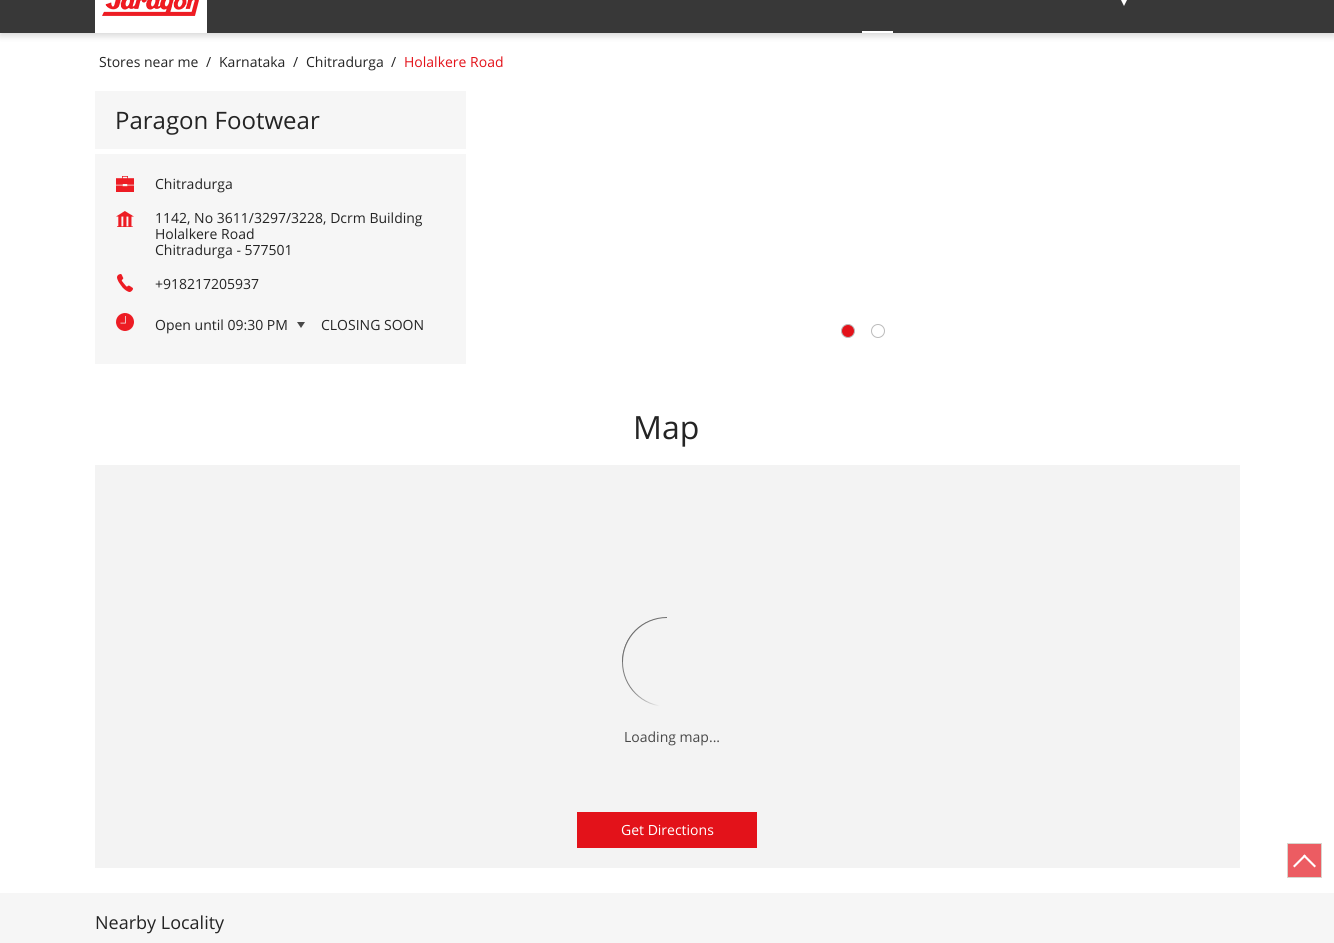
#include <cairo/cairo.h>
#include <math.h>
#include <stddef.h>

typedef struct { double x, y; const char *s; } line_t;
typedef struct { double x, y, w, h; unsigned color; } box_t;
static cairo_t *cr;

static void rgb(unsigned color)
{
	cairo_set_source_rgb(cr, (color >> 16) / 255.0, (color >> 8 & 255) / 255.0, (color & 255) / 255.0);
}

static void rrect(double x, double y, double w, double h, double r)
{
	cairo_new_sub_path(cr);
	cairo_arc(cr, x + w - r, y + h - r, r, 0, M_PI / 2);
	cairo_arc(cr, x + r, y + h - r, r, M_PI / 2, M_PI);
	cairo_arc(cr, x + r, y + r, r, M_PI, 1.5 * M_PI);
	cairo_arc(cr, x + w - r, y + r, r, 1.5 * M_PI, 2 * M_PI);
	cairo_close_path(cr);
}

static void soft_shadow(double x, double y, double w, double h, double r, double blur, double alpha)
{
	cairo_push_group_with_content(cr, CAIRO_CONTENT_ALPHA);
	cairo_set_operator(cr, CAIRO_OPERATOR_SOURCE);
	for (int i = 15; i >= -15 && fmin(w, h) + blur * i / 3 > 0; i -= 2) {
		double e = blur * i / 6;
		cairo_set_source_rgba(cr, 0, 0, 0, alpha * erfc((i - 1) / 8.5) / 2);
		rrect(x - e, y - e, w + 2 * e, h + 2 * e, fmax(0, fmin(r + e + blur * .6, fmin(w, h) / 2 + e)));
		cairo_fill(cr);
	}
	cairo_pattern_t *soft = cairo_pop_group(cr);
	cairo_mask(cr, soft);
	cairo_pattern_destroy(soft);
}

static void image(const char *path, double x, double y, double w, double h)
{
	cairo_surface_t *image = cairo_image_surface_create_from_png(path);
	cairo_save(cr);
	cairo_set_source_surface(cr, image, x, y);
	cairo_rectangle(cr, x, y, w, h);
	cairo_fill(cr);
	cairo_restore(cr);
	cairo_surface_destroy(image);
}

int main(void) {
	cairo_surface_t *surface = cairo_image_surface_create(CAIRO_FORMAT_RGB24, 1334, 943);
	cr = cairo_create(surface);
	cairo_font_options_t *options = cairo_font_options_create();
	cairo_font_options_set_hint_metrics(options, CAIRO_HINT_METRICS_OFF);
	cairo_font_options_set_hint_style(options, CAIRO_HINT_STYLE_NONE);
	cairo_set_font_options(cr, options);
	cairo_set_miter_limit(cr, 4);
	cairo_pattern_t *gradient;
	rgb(0xffffff);
	cairo_paint(cr);
	rgb(0x000000);
	soft_shadow(0, -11, 1334, 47, 0, 3.5, 0.16);
	rgb(0x383838);
	cairo_rectangle(cr, 0, 0, 1334, 33);
	cairo_fill(cr);
	image("img/1.png", 95, 0, 112, 33);
	image("img/2.png", 1121, 0, 6, 6);
	{
		static const box_t items[] = {
			{862, 31, 31, 2, 0xffffff},
			{95, 91, 371, 273, 0xf6f6f6},
			{95, 149, 371, 5, 0xffffff},
		};
		for (size_t i = 0; i < sizeof items / sizeof *items; i++) {
			rgb(items[i].color);
			cairo_rectangle(cr, items[i].x, items[i].y, items[i].w, items[i].h);
			cairo_fill(cr);
		}
	}
	image("img/3.png", 116, 176, 18, 16);
	image("img/4.png", 116, 211, 18, 16);
	image("img/5.png", 117, 274, 16, 18);
	image("img/6.png", 116, 313, 18, 18);
	rgb(0x484848);
	cairo_new_path(cr);
	cairo_move_to(cr, 297, 322);
	cairo_line_to(cr, 305, 322);
	cairo_line_to(cr, 301, 328);
	cairo_close_path(cr);
	cairo_fill(cr);
	rgb(0xe3121a);
	cairo_arc(cr, 848, 331, 6.5, 0, 2 * M_PI);
	cairo_fill_preserve(cr);
	rgb(0xbbbbbb);
	cairo_set_line_width(cr, 1);
	cairo_stroke(cr);
	cairo_arc(cr, 878, 331, 6.5, 0, 2 * M_PI);
	cairo_stroke(cr);
	rgb(0xf3f3f3);
	cairo_rectangle(cr, 95, 465, 1145, 403);
	cairo_fill(cr);
	gradient = cairo_pattern_create_linear(622, 662, 712, 662);
	cairo_pattern_add_color_stop_rgba(gradient, 0.1, 0.49, 0.49, 0.49, 1);
	cairo_pattern_add_color_stop_rgba(gradient, 0.42, 0.953, 0.953, 0.953, 1);
	cairo_set_source(cr, gradient);
	cairo_pattern_destroy(gradient);
	cairo_arc(cr, 667, 662, 45, 0, 2 * M_PI);
	cairo_fill(cr);
	rgb(0x6f6f6f);
	cairo_new_path(cr);
	cairo_move_to(cr, 667, 617);
	cairo_line_to(cr, 667, 662);
	cairo_line_to(cr, 622, 662);
	cairo_curve_to(cr, 622, 637, 642, 617, 667, 617);
	cairo_close_path(cr);
	cairo_fill(cr);
	rgb(0xf3f3f3);
	cairo_arc(cr, 667, 662, 44, 0, 2 * M_PI);
	cairo_fill(cr);
	rgb(0xe3121a);
	cairo_rectangle(cr, 577, 812, 180, 36);
	cairo_fill(cr);
	rgb(0xec5c62);
	cairo_rectangle(cr, 1287.5, 843.5, 34, 34);
	cairo_fill_preserve(cr);
	rgb(0xd8d4cd);
	cairo_stroke(cr);
	rgb(0xffffff);
	cairo_new_path(cr);
	cairo_move_to(cr, 1294.5, 867.5);
	cairo_line_to(cr, 1293, 866);
	cairo_line_to(cr, 1304.5, 854.5);
	cairo_line_to(cr, 1306, 856);
	cairo_close_path(cr);
	cairo_fill(cr);
	cairo_new_path(cr);
	cairo_move_to(cr, 1314.5, 867.5);
	cairo_line_to(cr, 1303, 856);
	cairo_line_to(cr, 1304.5, 854.5);
	cairo_line_to(cr, 1316, 866);
	cairo_close_path(cr);
	cairo_fill(cr);
	rgb(0xf6f6f6);
	cairo_rectangle(cr, 0, 893, 1334, 50);
	cairo_fill(cr);
	cairo_select_font_face(cr, "Open Sans", CAIRO_FONT_SLANT_NORMAL, CAIRO_FONT_WEIGHT_NORMAL);
	cairo_set_font_size(cr, 14);
	rgb(0x242424);
	{
		static const line_t items[] = {
			{99, 67, "Stores near me"},
			{206, 67, "/"},
			{219, 67, "Karnataka"},
			{293, 67, "/"},
			{306, 67, "Chitradurga"},
			{391, 67, "/"},
		};
		for (size_t i = 0; i < sizeof items / sizeof *items; i++) {
			cairo_move_to(cr, items[i].x, items[i].y);
			cairo_show_text(cr, items[i].s);
		}
	}
	rgb(0xe3121a);
	cairo_move_to(cr, 404, 67);
	cairo_show_text(cr, "Holalkere Road");
	cairo_set_font_size(cr, 24);
	rgb(0x242424);
	cairo_move_to(cr, 115, 129);
	cairo_show_text(cr, "Paragon Footwear");
	cairo_set_font_size(cr, 14);
	{
		static const line_t items[] = {
			{155, 189, "Chitradurga"},
			{155, 223, "1142, No 3611/3297/3228, Dcrm Building"},
			{155, 239, "Holalkere Road"},
			{155, 255, "Chitradurga - 577501"},
			{155, 289, "+918217205937"},
			{155, 330, "Open until 09:30 PM"},
			{321, 330, "CLOSING SOON"},
		};
		for (size_t i = 0; i < sizeof items / sizeof *items; i++) {
			cairo_move_to(cr, items[i].x, items[i].y);
			cairo_show_text(cr, items[i].s);
		}
	}
	cairo_set_font_size(cr, 32);
	cairo_move_to(cr, 633, 439);
	cairo_show_text(cr, "Map");
	cairo_set_font_size(cr, 14);
	rgb(0x484848);
	cairo_move_to(cr, 624, 742);
	cairo_show_text(cr, "Loading map...");
	rgb(0xffffff);
	cairo_move_to(cr, 621, 835);
	cairo_show_text(cr, "Get Directions");
	cairo_set_font_size(cr, 18);
	rgb(0x242424);
	cairo_move_to(cr, 95, 929);
	cairo_show_text(cr, "Nearby Locality");
	cairo_surface_write_to_png(surface, "page.png");
	cairo_font_options_destroy(options);
	cairo_destroy(cr);
	cairo_surface_destroy(surface);
	return 0;
}
